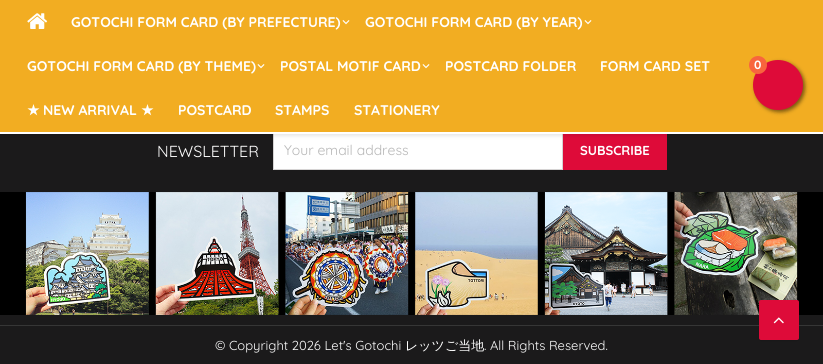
#include <cairo/cairo.h>
#include <math.h>
#include <stddef.h>

typedef struct { double x, y; const char *s; } line_t;
static cairo_t *cr;

static void rgb(unsigned color)
{
	cairo_set_source_rgb(cr, (color >> 16) / 255.0, (color >> 8 & 255) / 255.0, (color & 255) / 255.0);
}

static void rrect(double x, double y, double w, double h, double r)
{
	cairo_new_sub_path(cr);
	cairo_arc(cr, x + w - r, y + h - r, r, 0, M_PI / 2);
	cairo_arc(cr, x + r, y + h - r, r, M_PI / 2, M_PI);
	cairo_arc(cr, x + r, y + r, r, M_PI, 1.5 * M_PI);
	cairo_arc(cr, x + w - r, y + r, r, 1.5 * M_PI, 2 * M_PI);
	cairo_close_path(cr);
}

static void soft_shadow(double x, double y, double w, double h, double r, double blur, double alpha)
{
	cairo_push_group_with_content(cr, CAIRO_CONTENT_ALPHA);
	cairo_set_operator(cr, CAIRO_OPERATOR_SOURCE);
	for (int i = 15; i >= -15 && fmin(w, h) + blur * i / 3 > 0; i -= 2) {
		double e = blur * i / 6;
		cairo_set_source_rgba(cr, 0, 0, 0, alpha * erfc((i - 1) / 8.5) / 2);
		rrect(x - e, y - e, w + 2 * e, h + 2 * e, fmax(0, fmin(r + e + blur * .6, fmin(w, h) / 2 + e)));
		cairo_fill(cr);
	}
	cairo_pattern_t *soft = cairo_pop_group(cr);
	cairo_mask(cr, soft);
	cairo_pattern_destroy(soft);
}

static void image(const char *path, double x, double y, double w, double h)
{
	cairo_surface_t *image = cairo_image_surface_create_from_png(path);
	cairo_save(cr);
	cairo_set_source_surface(cr, image, x, y);
	cairo_rectangle(cr, x, y, w, h);
	cairo_fill(cr);
	cairo_restore(cr);
	cairo_surface_destroy(image);
}

int main(void) {
	cairo_surface_t *surface = cairo_image_surface_create(CAIRO_FORMAT_RGB24, 823, 364);
	cr = cairo_create(surface);
	cairo_font_options_t *options = cairo_font_options_create();
	cairo_font_options_set_hint_metrics(options, CAIRO_HINT_METRICS_OFF);
	cairo_font_options_set_hint_style(options, CAIRO_HINT_STYLE_NONE);
	cairo_set_font_options(cr, options);
	cairo_set_miter_limit(cr, 4);
	rgb(0x1b1a1b);
	cairo_paint(cr);
	rgb(0xffffff);
	cairo_rectangle(cr, 274, 134, 288, 35);
	cairo_fill(cr);
	cairo_rectangle(cr, 273.5, 130.5, 289, 39);
	rgb(0xd6d4d4);
	cairo_set_line_width(cr, 1);
	cairo_stroke(cr);
	rgb(0xde0b39);
	cairo_rectangle(cr, 563, 134, 104, 36);
	cairo_fill(cr);
	rgb(0x000000);
	soft_shadow(0, 2, 823, 134, 0, 2, 0.1);
	rgb(0xf2ad22);
	cairo_rectangle(cr, 0, 0, 823, 132);
	cairo_fill(cr);
	rgb(0xffffff);
	cairo_rectangle(cr, 0, 132, 823, 2);
	cairo_fill(cr);
	image("img/1.png", 27, 13, 21, 16);
	image("img/2.png", 342, 20, 8, 5);
	image("img/2.png", 584, 20, 8, 5);
	image("img/2.png", 257, 64, 8, 5);
	image("img/2.png", 422, 64, 8, 5);
	rgb(0x000000);
	soft_shadow(755, 62, 50, 50, 25, 2, 0.5);
	rgb(0xde0b39);
	cairo_arc(cr, 778, 85, 25, 0, 2 * M_PI);
	cairo_fill(cr);
	rgb(0xf8653d);
	cairo_arc(cr, 758, 65, 9, 0, 2 * M_PI);
	cairo_fill(cr);
	image("img/3.png", 0, 192, 823, 123);
	rgb(0x363636);
	cairo_rectangle(cr, 0, 325, 823, 1);
	cairo_fill(cr);
	rgb(0x000000);
	soft_shadow(759, 301, 40, 40, 2, 0.5, 0.1);
	rgb(0xde0b39);
	rrect(759, 300, 40, 40, 2);
	cairo_fill(cr);
	image("img/4.png", 773, 317, 11, 7);
	cairo_select_font_face(cr, "Quicksand", CAIRO_FONT_SLANT_NORMAL, CAIRO_FONT_WEIGHT_BOLD);
	cairo_set_font_size(cr, 14);
	rgb(0xffffff);
	{
		static const line_t items[] = {
			{71, 27, "GOTOCHI FORM CARD (BY PREFECTURE)"},
			{365, 27, "GOTOCHI FORM CARD (BY YEAR)"},
			{27, 71, "GOTOCHI FORM CARD (BY THEME)"},
			{280, 71, "POSTAL MOTIF CARD"},
			{445, 71, "POSTCARD FOLDER"},
			{600, 71, "FORM CARD SET"},
		};
		for (size_t i = 0; i < sizeof items / sizeof *items; i++) {
			cairo_move_to(cr, items[i].x, items[i].y);
			cairo_show_text(cr, items[i].s);
		}
	}
	cairo_select_font_face(cr, "DejaVu Sans", CAIRO_FONT_SLANT_NORMAL, CAIRO_FONT_WEIGHT_BOLD);
	cairo_move_to(cr, 27, 115);
	cairo_show_text(cr, "★");
	cairo_select_font_face(cr, "Quicksand", CAIRO_FONT_SLANT_NORMAL, CAIRO_FONT_WEIGHT_BOLD);
	cairo_move_to(cr, 43, 115);
	cairo_show_text(cr, "NEW ARRIVAL");
	cairo_select_font_face(cr, "DejaVu Sans", CAIRO_FONT_SLANT_NORMAL, CAIRO_FONT_WEIGHT_BOLD);
	cairo_move_to(cr, 141, 115);
	cairo_show_text(cr, "★");
	cairo_select_font_face(cr, "Quicksand", CAIRO_FONT_SLANT_NORMAL, CAIRO_FONT_WEIGHT_BOLD);
	{
		static const line_t items[] = {
			{178, 115, "POSTCARD"},
			{275, 115, "STAMPS"},
			{354, 115, "STATIONERY"},
		};
		for (size_t i = 0; i < sizeof items / sizeof *items; i++) {
			cairo_move_to(cr, items[i].x, items[i].y);
			cairo_show_text(cr, items[i].s);
		}
	}
	cairo_set_font_size(cr, 12);
	cairo_move_to(cr, 754, 69);
	cairo_show_text(cr, "0");
	cairo_select_font_face(cr, "Quicksand", CAIRO_FONT_SLANT_NORMAL, CAIRO_FONT_WEIGHT_NORMAL);
	cairo_set_font_size(cr, 16);
	cairo_move_to(cr, 157, 157);
	cairo_show_text(cr, "NEWSLETTER");
	cairo_set_font_size(cr, 14);
	rgb(0xb7b7b7);
	cairo_move_to(cr, 284, 155);
	cairo_show_text(cr, "Your email address");
	cairo_select_font_face(cr, "Quicksand", CAIRO_FONT_SLANT_NORMAL, CAIRO_FONT_WEIGHT_BOLD);
	cairo_set_font_size(cr, 13);
	rgb(0xffffff);
	cairo_move_to(cr, 580, 155);
	cairo_show_text(cr, "SUBSCRIBE");
	cairo_select_font_face(cr, "Quicksand", CAIRO_FONT_SLANT_NORMAL, CAIRO_FONT_WEIGHT_NORMAL);
	cairo_move_to(cr, 215, 350);
	cairo_show_text(cr, "© Copyright 2026 Let's Gotochi");
	cairo_select_font_face(cr, "WenQuanYi Zen Hei Medium", CAIRO_FONT_SLANT_NORMAL, CAIRO_FONT_WEIGHT_NORMAL);
	cairo_move_to(cr, 405, 350);
	cairo_show_text(cr, "レッツご当地");
	cairo_select_font_face(cr, "Quicksand", CAIRO_FONT_SLANT_NORMAL, CAIRO_FONT_WEIGHT_NORMAL);
	cairo_move_to(cr, 484, 350);
	cairo_show_text(cr, ". All Rights Reserved.");
	cairo_surface_write_to_png(surface, "page.png");
	cairo_font_options_destroy(options);
	cairo_destroy(cr);
	cairo_surface_destroy(surface);
	return 0;
}
